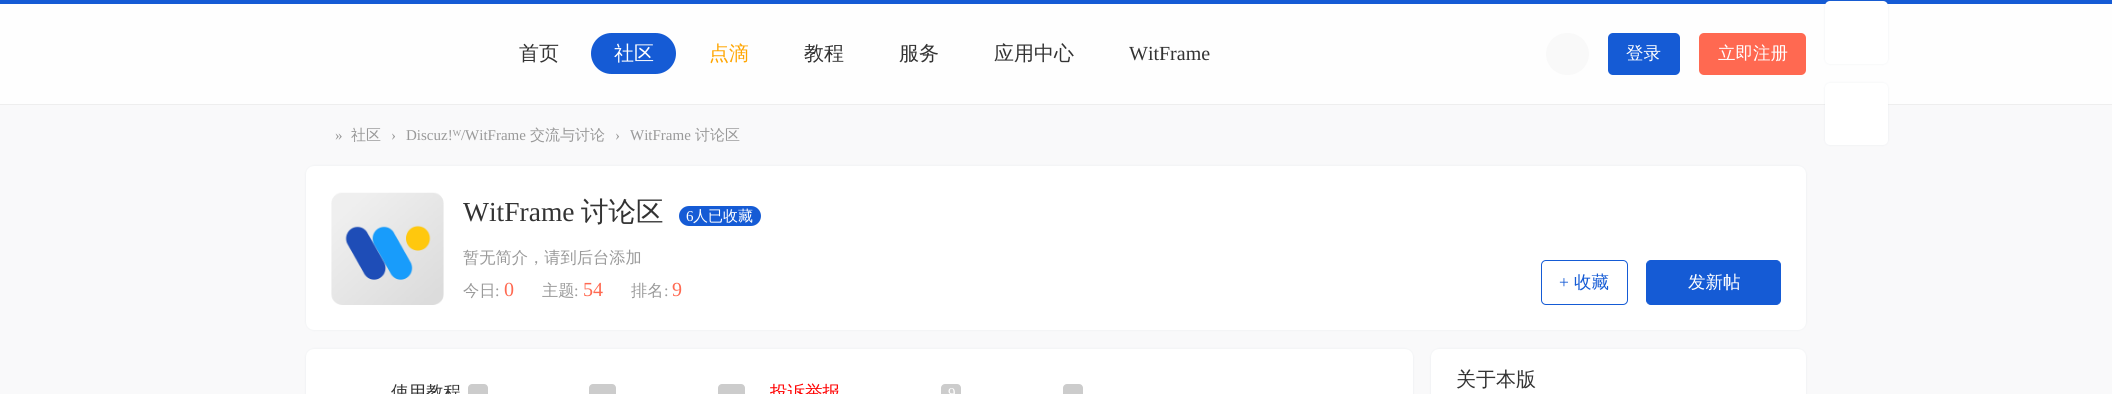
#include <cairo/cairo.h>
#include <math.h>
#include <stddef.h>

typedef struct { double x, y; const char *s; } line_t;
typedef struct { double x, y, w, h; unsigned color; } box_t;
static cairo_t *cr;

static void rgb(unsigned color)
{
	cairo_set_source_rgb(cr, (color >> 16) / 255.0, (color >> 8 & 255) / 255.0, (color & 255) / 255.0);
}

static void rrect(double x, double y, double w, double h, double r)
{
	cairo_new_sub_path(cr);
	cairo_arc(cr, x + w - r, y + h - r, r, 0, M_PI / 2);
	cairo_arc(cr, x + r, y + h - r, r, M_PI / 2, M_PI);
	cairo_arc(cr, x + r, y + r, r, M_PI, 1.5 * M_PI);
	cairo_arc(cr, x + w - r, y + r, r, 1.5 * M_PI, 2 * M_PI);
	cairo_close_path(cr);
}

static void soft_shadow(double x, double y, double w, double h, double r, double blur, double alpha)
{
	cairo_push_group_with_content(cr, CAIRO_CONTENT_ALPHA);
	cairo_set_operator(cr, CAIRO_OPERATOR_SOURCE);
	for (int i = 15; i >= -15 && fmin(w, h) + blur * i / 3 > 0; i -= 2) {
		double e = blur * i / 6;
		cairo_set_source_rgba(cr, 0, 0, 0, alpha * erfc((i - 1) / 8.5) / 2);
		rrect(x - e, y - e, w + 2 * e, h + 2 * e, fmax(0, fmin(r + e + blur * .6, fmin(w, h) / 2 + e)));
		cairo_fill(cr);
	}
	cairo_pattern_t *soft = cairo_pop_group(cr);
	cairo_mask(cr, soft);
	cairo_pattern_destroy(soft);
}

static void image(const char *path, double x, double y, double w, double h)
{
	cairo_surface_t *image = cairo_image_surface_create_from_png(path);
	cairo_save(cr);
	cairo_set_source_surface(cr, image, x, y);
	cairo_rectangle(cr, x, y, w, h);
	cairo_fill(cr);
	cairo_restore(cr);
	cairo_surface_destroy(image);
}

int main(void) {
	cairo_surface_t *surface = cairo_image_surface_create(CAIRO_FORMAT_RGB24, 2112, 394);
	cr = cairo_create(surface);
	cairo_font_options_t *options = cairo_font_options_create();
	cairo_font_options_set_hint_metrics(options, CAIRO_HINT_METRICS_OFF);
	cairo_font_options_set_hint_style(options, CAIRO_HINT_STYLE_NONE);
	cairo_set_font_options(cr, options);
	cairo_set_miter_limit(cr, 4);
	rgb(0xf9f9fa);
	cairo_paint(cr);
	{
		static const box_t items[] = {
			{0, 4, 2112, 100, 0xfefefe},
			{0, 0, 2112, 4, 0x155bd5},
			{0, 104, 2112, 1, 0xeeeeee},
		};
		for (size_t i = 0; i < sizeof items / sizeof *items; i++) {
			rgb(items[i].color);
			cairo_rectangle(cr, items[i].x, items[i].y, items[i].w, items[i].h);
			cairo_fill(cr);
		}
	}
	rgb(0x155bd5);
	rrect(591, 33, 85, 41, 20.5);
	cairo_fill(cr);
	rgb(0xf9f9f9);
	rrect(1546, 33, 43, 42, 21);
	cairo_fill(cr);
	rgb(0x155bd5);
	rrect(1608, 33, 72, 42, 5);
	cairo_fill(cr);
	rgb(0xff6951);
	rrect(1699, 33, 107, 42, 5);
	cairo_fill(cr);
	rgb(0x58768a);
	soft_shadow(1825, 1, 63, 63, 5, 1, 0.1);
	rgb(0xffffff);
	rrect(1825, 1, 63, 63, 5);
	cairo_fill(cr);
	rgb(0x58768a);
	soft_shadow(1825, 83, 63, 62, 5, 1, 0.1);
	rgb(0xffffff);
	rrect(1825, 83, 63, 62, 5);
	cairo_fill(cr);
	rgb(0x58768a);
	soft_shadow(306, 166, 1500, 164, 8, 1, 0.1);
	rgb(0xffffff);
	rrect(306, 166, 1500, 164, 8);
	cairo_fill(cr);
	image("img/1.png", 331, 192, 113, 113);
	rgb(0x155bd5);
	rrect(679, 206, 82, 20, 10);
	cairo_fill(cr);
	rrect(1541.5, 260.5, 86, 44, 4.5);
	cairo_set_line_width(cr, 1);
	cairo_stroke(cr);
	rrect(1646.5, 260.5, 134, 44, 4.5);
	cairo_fill_preserve(cr);
	cairo_stroke(cr);
	rgb(0x58768a);
	soft_shadow(306, 349, 1107, 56, 8, 1, 0.1);
	rgb(0xffffff);
	rrect(306, 349, 1107, 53, 8);
	cairo_fill(cr);
	rgb(0xcccccc);
	rrect(468, 384, 20, 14, 4);
	cairo_fill(cr);
	rrect(589, 384, 27, 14, 4);
	cairo_fill(cr);
	rrect(718, 384, 27, 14, 4);
	cairo_fill(cr);
	rrect(941, 384, 20, 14, 4);
	cairo_fill(cr);
	rrect(1063, 384, 20, 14, 4);
	cairo_fill(cr);
	rgb(0x58768a);
	soft_shadow(1431, 349, 375, 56, 8, 1, 0.1);
	rgb(0xffffff);
	rrect(1431, 349, 375, 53, 8);
	cairo_fill(cr);
	cairo_select_font_face(cr, "WenQuanYi Zen Hei Medium", CAIRO_FONT_SLANT_NORMAL, CAIRO_FONT_WEIGHT_NORMAL);
	cairo_set_font_size(cr, 20);
	rgb(0x333333);
	cairo_move_to(cr, 519, 60);
	cairo_show_text(cr, "首页");
	rgb(0xffffff);
	cairo_move_to(cr, 614, 60);
	cairo_show_text(cr, "社区");
	rgb(0xffa500);
	cairo_move_to(cr, 709, 60);
	cairo_show_text(cr, "点滴");
	rgb(0x333333);
	{
		static const line_t items[] = {
			{804, 60, "教程"},
			{899, 60, "服务"},
			{994, 60, "应用中心"},
		};
		for (size_t i = 0; i < sizeof items / sizeof *items; i++) {
			cairo_move_to(cr, items[i].x, items[i].y);
			cairo_show_text(cr, items[i].s);
		}
	}
	cairo_select_font_face(cr, "Liberation Serif", CAIRO_FONT_SLANT_NORMAL, CAIRO_FONT_WEIGHT_NORMAL);
	cairo_move_to(cr, 1129, 60);
	cairo_show_text(cr, "WitFrame");
	cairo_select_font_face(cr, "WenQuanYi Zen Hei Medium", CAIRO_FONT_SLANT_NORMAL, CAIRO_FONT_WEIGHT_NORMAL);
	cairo_set_font_size(cr, 17.5);
	rgb(0xffffff);
	cairo_move_to(cr, 1626, 59);
	cairo_show_text(cr, "登录");
	cairo_move_to(cr, 1718, 59);
	cairo_show_text(cr, "立即注册");
	cairo_select_font_face(cr, "Liberation Serif", CAIRO_FONT_SLANT_NORMAL, CAIRO_FONT_WEIGHT_NORMAL);
	cairo_set_font_size(cr, 15);
	rgb(0x999999);
	cairo_move_to(cr, 335, 140);
	cairo_show_text(cr, "»");
	cairo_select_font_face(cr, "WenQuanYi Zen Hei Medium", CAIRO_FONT_SLANT_NORMAL, CAIRO_FONT_WEIGHT_NORMAL);
	cairo_move_to(cr, 351, 140);
	cairo_show_text(cr, "社区");
	cairo_select_font_face(cr, "Liberation Serif", CAIRO_FONT_SLANT_NORMAL, CAIRO_FONT_WEIGHT_NORMAL);
	cairo_move_to(cr, 391, 140);
	cairo_show_text(cr, "›");
	cairo_move_to(cr, 406, 140);
	cairo_show_text(cr, "Discuz!ᵂ/WitFrame");
	cairo_select_font_face(cr, "WenQuanYi Zen Hei Medium", CAIRO_FONT_SLANT_NORMAL, CAIRO_FONT_WEIGHT_NORMAL);
	cairo_move_to(cr, 530, 140);
	cairo_show_text(cr, "交流与讨论");
	cairo_select_font_face(cr, "Liberation Serif", CAIRO_FONT_SLANT_NORMAL, CAIRO_FONT_WEIGHT_NORMAL);
	cairo_move_to(cr, 615, 140);
	cairo_show_text(cr, "›");
	cairo_move_to(cr, 630, 140);
	cairo_show_text(cr, "WitFrame");
	cairo_select_font_face(cr, "WenQuanYi Zen Hei Medium", CAIRO_FONT_SLANT_NORMAL, CAIRO_FONT_WEIGHT_NORMAL);
	cairo_move_to(cr, 695, 140);
	cairo_show_text(cr, "讨论区");
	cairo_select_font_face(cr, "Liberation Serif", CAIRO_FONT_SLANT_NORMAL, CAIRO_FONT_WEIGHT_NORMAL);
	cairo_set_font_size(cr, 27.5);
	rgb(0x333333);
	cairo_move_to(cr, 463, 221);
	cairo_show_text(cr, "WitFrame");
	cairo_select_font_face(cr, "WenQuanYi Zen Hei Medium", CAIRO_FONT_SLANT_NORMAL, CAIRO_FONT_WEIGHT_NORMAL);
	cairo_move_to(cr, 581, 221);
	cairo_show_text(cr, "讨论区");
	cairo_select_font_face(cr, "Liberation Serif", CAIRO_FONT_SLANT_NORMAL, CAIRO_FONT_WEIGHT_NORMAL);
	cairo_set_font_size(cr, 15);
	rgb(0xffffff);
	cairo_move_to(cr, 686, 221);
	cairo_show_text(cr, "6");
	cairo_select_font_face(cr, "WenQuanYi Zen Hei Medium", CAIRO_FONT_SLANT_NORMAL, CAIRO_FONT_WEIGHT_NORMAL);
	cairo_move_to(cr, 693, 221);
	cairo_show_text(cr, "人已收藏");
	cairo_set_font_size(cr, 16.25);
	rgb(0x999999);
	cairo_move_to(cr, 463, 263);
	cairo_show_text(cr, "暂无简介，请到后台添加");
	cairo_move_to(cr, 463, 296);
	cairo_show_text(cr, "今日");
	cairo_select_font_face(cr, "Liberation Serif", CAIRO_FONT_SLANT_NORMAL, CAIRO_FONT_WEIGHT_NORMAL);
	cairo_move_to(cr, 495, 296);
	cairo_show_text(cr, ":");
	cairo_set_font_size(cr, 20);
	rgb(0xff6951);
	cairo_move_to(cr, 504, 296);
	cairo_show_text(cr, "0");
	cairo_select_font_face(cr, "WenQuanYi Zen Hei Medium", CAIRO_FONT_SLANT_NORMAL, CAIRO_FONT_WEIGHT_NORMAL);
	cairo_set_font_size(cr, 16.25);
	rgb(0x999999);
	cairo_move_to(cr, 542, 296);
	cairo_show_text(cr, "主题");
	cairo_select_font_face(cr, "Liberation Serif", CAIRO_FONT_SLANT_NORMAL, CAIRO_FONT_WEIGHT_NORMAL);
	cairo_move_to(cr, 574, 296);
	cairo_show_text(cr, ":");
	cairo_set_font_size(cr, 20);
	rgb(0xff6951);
	cairo_move_to(cr, 583, 296);
	cairo_show_text(cr, "54");
	cairo_select_font_face(cr, "WenQuanYi Zen Hei Medium", CAIRO_FONT_SLANT_NORMAL, CAIRO_FONT_WEIGHT_NORMAL);
	cairo_set_font_size(cr, 16.25);
	rgb(0x999999);
	cairo_move_to(cr, 631, 296);
	cairo_show_text(cr, "排名");
	cairo_select_font_face(cr, "Liberation Serif", CAIRO_FONT_SLANT_NORMAL, CAIRO_FONT_WEIGHT_NORMAL);
	cairo_move_to(cr, 664, 296);
	cairo_show_text(cr, ":");
	cairo_set_font_size(cr, 20);
	rgb(0xff6951);
	cairo_move_to(cr, 672, 296);
	cairo_show_text(cr, "9");
	cairo_set_font_size(cr, 17.5);
	rgb(0x155bd5);
	cairo_move_to(cr, 1559, 288);
	cairo_show_text(cr, "+");
	cairo_select_font_face(cr, "WenQuanYi Zen Hei Medium", CAIRO_FONT_SLANT_NORMAL, CAIRO_FONT_WEIGHT_NORMAL);
	cairo_move_to(cr, 1574, 288);
	cairo_show_text(cr, "收藏");
	rgb(0xffffff);
	cairo_move_to(cr, 1688, 288);
	cairo_show_text(cr, "发新帖");
	rgb(0x333333);
	cairo_move_to(cr, 391, 398);
	cairo_show_text(cr, "使用教程");
	rgb(0xff0000);
	cairo_move_to(cr, 770, 398);
	cairo_show_text(cr, "投诉举报");
	cairo_select_font_face(cr, "Liberation Serif", CAIRO_FONT_SLANT_NORMAL, CAIRO_FONT_WEIGHT_NORMAL);
	cairo_set_font_size(cr, 15);
	rgb(0xffffff);
	cairo_move_to(cr, 948, 398);
	cairo_show_text(cr, "9");
	cairo_select_font_face(cr, "WenQuanYi Zen Hei Medium", CAIRO_FONT_SLANT_NORMAL, CAIRO_FONT_WEIGHT_NORMAL);
	cairo_set_font_size(cr, 20);
	rgb(0x333333);
	cairo_move_to(cr, 1456, 386);
	cairo_show_text(cr, "关于本版");
	cairo_surface_write_to_png(surface, "page.png");
	cairo_font_options_destroy(options);
	cairo_destroy(cr);
	cairo_surface_destroy(surface);
	return 0;
}
